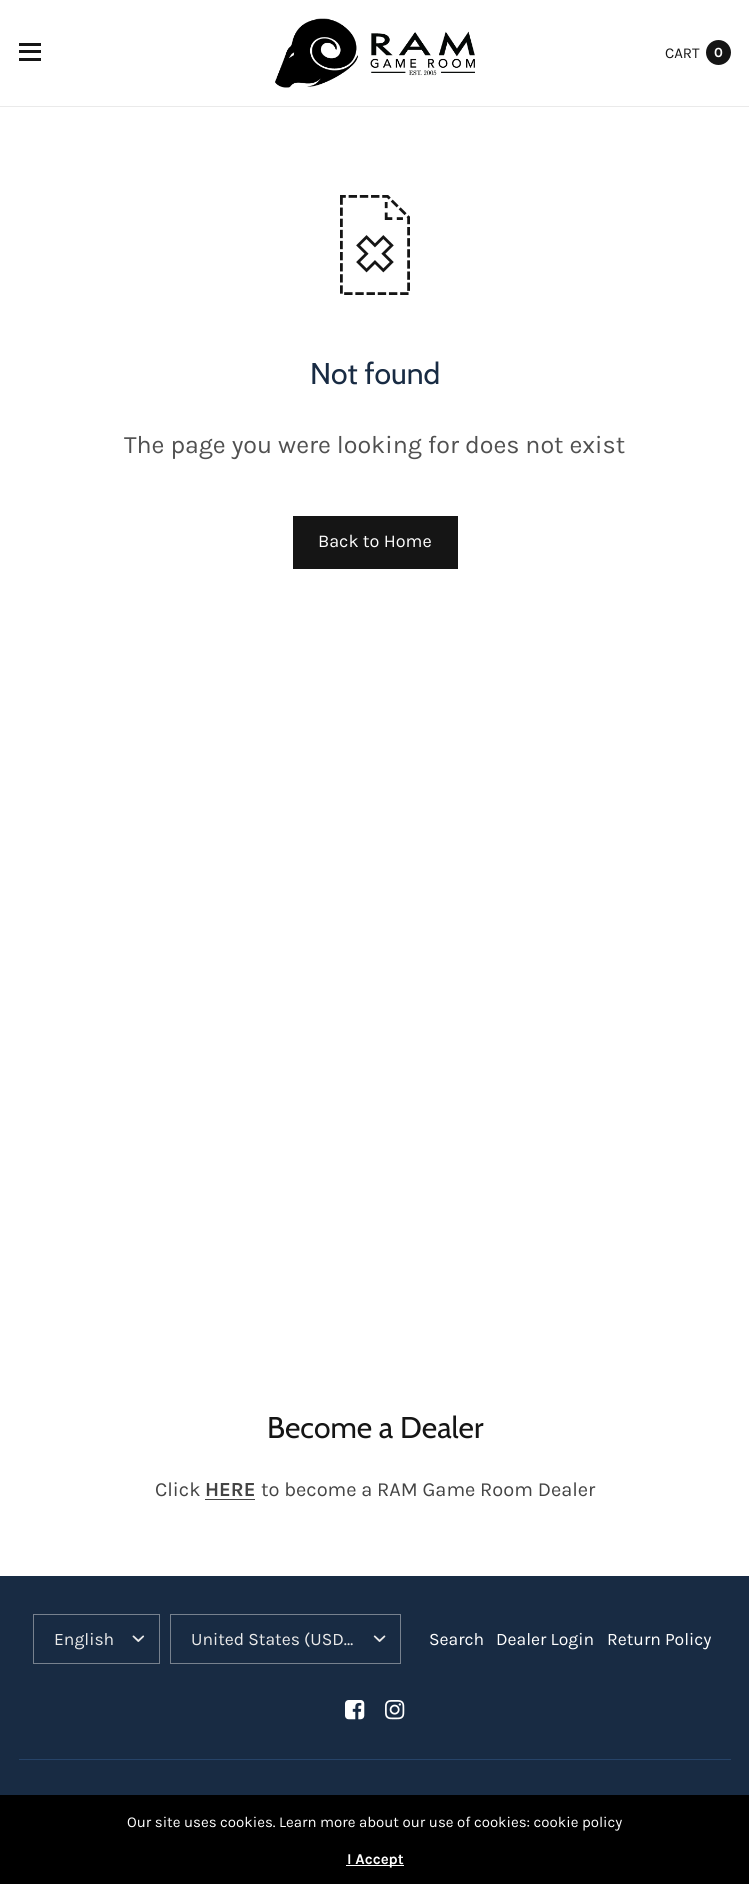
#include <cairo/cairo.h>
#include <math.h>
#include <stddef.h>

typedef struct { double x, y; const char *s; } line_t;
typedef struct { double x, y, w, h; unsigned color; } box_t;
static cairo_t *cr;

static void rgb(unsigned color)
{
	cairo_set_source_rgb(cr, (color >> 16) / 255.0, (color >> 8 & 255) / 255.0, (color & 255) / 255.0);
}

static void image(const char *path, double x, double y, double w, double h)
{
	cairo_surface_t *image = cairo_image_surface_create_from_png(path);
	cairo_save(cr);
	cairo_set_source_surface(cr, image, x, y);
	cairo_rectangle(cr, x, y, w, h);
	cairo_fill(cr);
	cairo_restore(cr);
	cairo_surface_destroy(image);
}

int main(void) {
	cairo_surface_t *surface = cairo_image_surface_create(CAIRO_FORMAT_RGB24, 749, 1884);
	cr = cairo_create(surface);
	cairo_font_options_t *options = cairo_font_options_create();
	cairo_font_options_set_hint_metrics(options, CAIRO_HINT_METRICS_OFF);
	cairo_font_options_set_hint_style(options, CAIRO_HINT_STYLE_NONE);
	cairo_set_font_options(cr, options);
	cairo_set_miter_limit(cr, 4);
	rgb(0xffffff);
	cairo_paint(cr);
	{
		static const box_t items[] = {
			{0, 106, 749, 1, 0xeaeaea},
			{19, 43, 22, 3, 0x151515},
			{19, 50, 22, 3, 0x151515},
			{19, 58, 22, 3, 0x151515},
		};
		for (size_t i = 0; i < sizeof items / sizeof *items; i++) {
			rgb(items[i].color);
			cairo_rectangle(cr, items[i].x, items[i].y, items[i].w, items[i].h);
			cairo_fill(cr);
		}
	}
	image("img/1.png", 275, 18, 200, 70);
	cairo_arc(cr, 718.5, 52.5, 12.5, 0, 2 * M_PI);
	cairo_fill(cr);
	image("img/2.png", 340, 195, 70, 100);
	{
		static const box_t items[] = {
			{293, 516, 165, 53, 0x151515},
			{205, 1499, 50, 1, 0x444444},
			{0, 1576, 749, 219, 0x182b43},
		};
		for (size_t i = 0; i < sizeof items / sizeof *items; i++) {
			rgb(items[i].color);
			cairo_rectangle(cr, items[i].x, items[i].y, items[i].w, items[i].h);
			cairo_fill(cr);
		}
	}
	cairo_rectangle(cr, 33.5, 1614.5, 126, 49);
	rgb(0x77818e);
	cairo_set_line_width(cr, 1);
	cairo_stroke(cr);
	image("img/3.png", 132, 1635, 13, 7);
	cairo_rectangle(cr, 170.5, 1614.5, 230, 49);
	cairo_stroke(cr);
	image("img/4.png", 373, 1635, 13, 7);
	image("img/5.png", 345, 1700, 20, 20);
	image("img/6.png", 385, 1700, 20, 20);
	{
		static const box_t items[] = {
			{19, 1759, 712, 1, 0x264368},
			{0, 1795, 749, 89, 0x000000},
			{346, 1865, 58, 1, 0xffffff},
		};
		for (size_t i = 0; i < sizeof items / sizeof *items; i++) {
			rgb(items[i].color);
			cairo_rectangle(cr, items[i].x, items[i].y, items[i].w, items[i].h);
			cairo_fill(cr);
		}
	}
	cairo_select_font_face(cr, "Karla", CAIRO_FONT_SLANT_NORMAL, CAIRO_FONT_WEIGHT_NORMAL);
	cairo_set_font_size(cr, 15);
	rgb(0x151515);
	cairo_move_to(cr, 665, 58);
	cairo_show_text(cr, "CART");
	cairo_select_font_face(cr, "Karla", CAIRO_FONT_SLANT_NORMAL, CAIRO_FONT_WEIGHT_BOLD);
	cairo_set_font_size(cr, 14);
	rgb(0xffffff);
	cairo_move_to(cr, 714, 57);
	cairo_show_text(cr, "0");
	cairo_select_font_face(cr, "Cabin", CAIRO_FONT_SLANT_NORMAL, CAIRO_FONT_WEIGHT_NORMAL);
	cairo_set_font_size(cr, 30);
	rgb(0x182b43);
	cairo_move_to(cr, 310, 384);
	cairo_show_text(cr, "Not found");
	cairo_select_font_face(cr, "Karla", CAIRO_FONT_SLANT_NORMAL, CAIRO_FONT_WEIGHT_NORMAL);
	cairo_set_font_size(cr, 25);
	rgb(0x505050);
	cairo_move_to(cr, 124, 453);
	cairo_show_text(cr, "The page you were looking for does not exist");
	cairo_set_font_size(cr, 18);
	rgb(0xffffff);
	cairo_move_to(cr, 318, 547);
	cairo_show_text(cr, "Back to Home");
	cairo_select_font_face(cr, "Cabin", CAIRO_FONT_SLANT_NORMAL, CAIRO_FONT_WEIGHT_NORMAL);
	cairo_set_font_size(cr, 30);
	rgb(0x151515);
	cairo_move_to(cr, 267, 1438);
	cairo_show_text(cr, "Become a Dealer");
	cairo_select_font_face(cr, "Karla", CAIRO_FONT_SLANT_NORMAL, CAIRO_FONT_WEIGHT_NORMAL);
	cairo_set_font_size(cr, 20);
	rgb(0x444444);
	cairo_move_to(cr, 155, 1496);
	cairo_show_text(cr, "Click");
	cairo_select_font_face(cr, "Karla", CAIRO_FONT_SLANT_NORMAL, CAIRO_FONT_WEIGHT_BOLD);
	cairo_move_to(cr, 205, 1496);
	cairo_show_text(cr, "HERE");
	cairo_select_font_face(cr, "Karla", CAIRO_FONT_SLANT_NORMAL, CAIRO_FONT_WEIGHT_NORMAL);
	cairo_move_to(cr, 261, 1496);
	cairo_show_text(cr, "to become a RAM Game Room Dealer");
	cairo_set_font_size(cr, 17.5);
	rgb(0xeaeaea);
	cairo_move_to(cr, 54, 1645);
	cairo_show_text(cr, "English");
	cairo_move_to(cr, 191, 1645);
	cairo_show_text(cr, "United States (USD…");
	rgb(0xffffff);
	{
		static const line_t items[] = {
			{429, 1645, "Search"},
			{496, 1645, "Dealer Login"},
			{607, 1645, "Return Policy"},
		};
		for (size_t i = 0; i < sizeof items / sizeof *items; i++) {
			cairo_move_to(cr, items[i].x, items[i].y);
			cairo_show_text(cr, items[i].s);
		}
	}
	cairo_set_font_size(cr, 15);
	cairo_move_to(cr, 127, 1827);
	cairo_show_text(cr, "Our site uses cookies. Learn more about our use of cookies: cookie policy");
	cairo_select_font_face(cr, "Karla", CAIRO_FONT_SLANT_NORMAL, CAIRO_FONT_WEIGHT_BOLD);
	cairo_move_to(cr, 347, 1864);
	cairo_show_text(cr, "I Accept");
	cairo_surface_write_to_png(surface, "page.png");
	cairo_font_options_destroy(options);
	cairo_destroy(cr);
	cairo_surface_destroy(surface);
	return 0;
}
